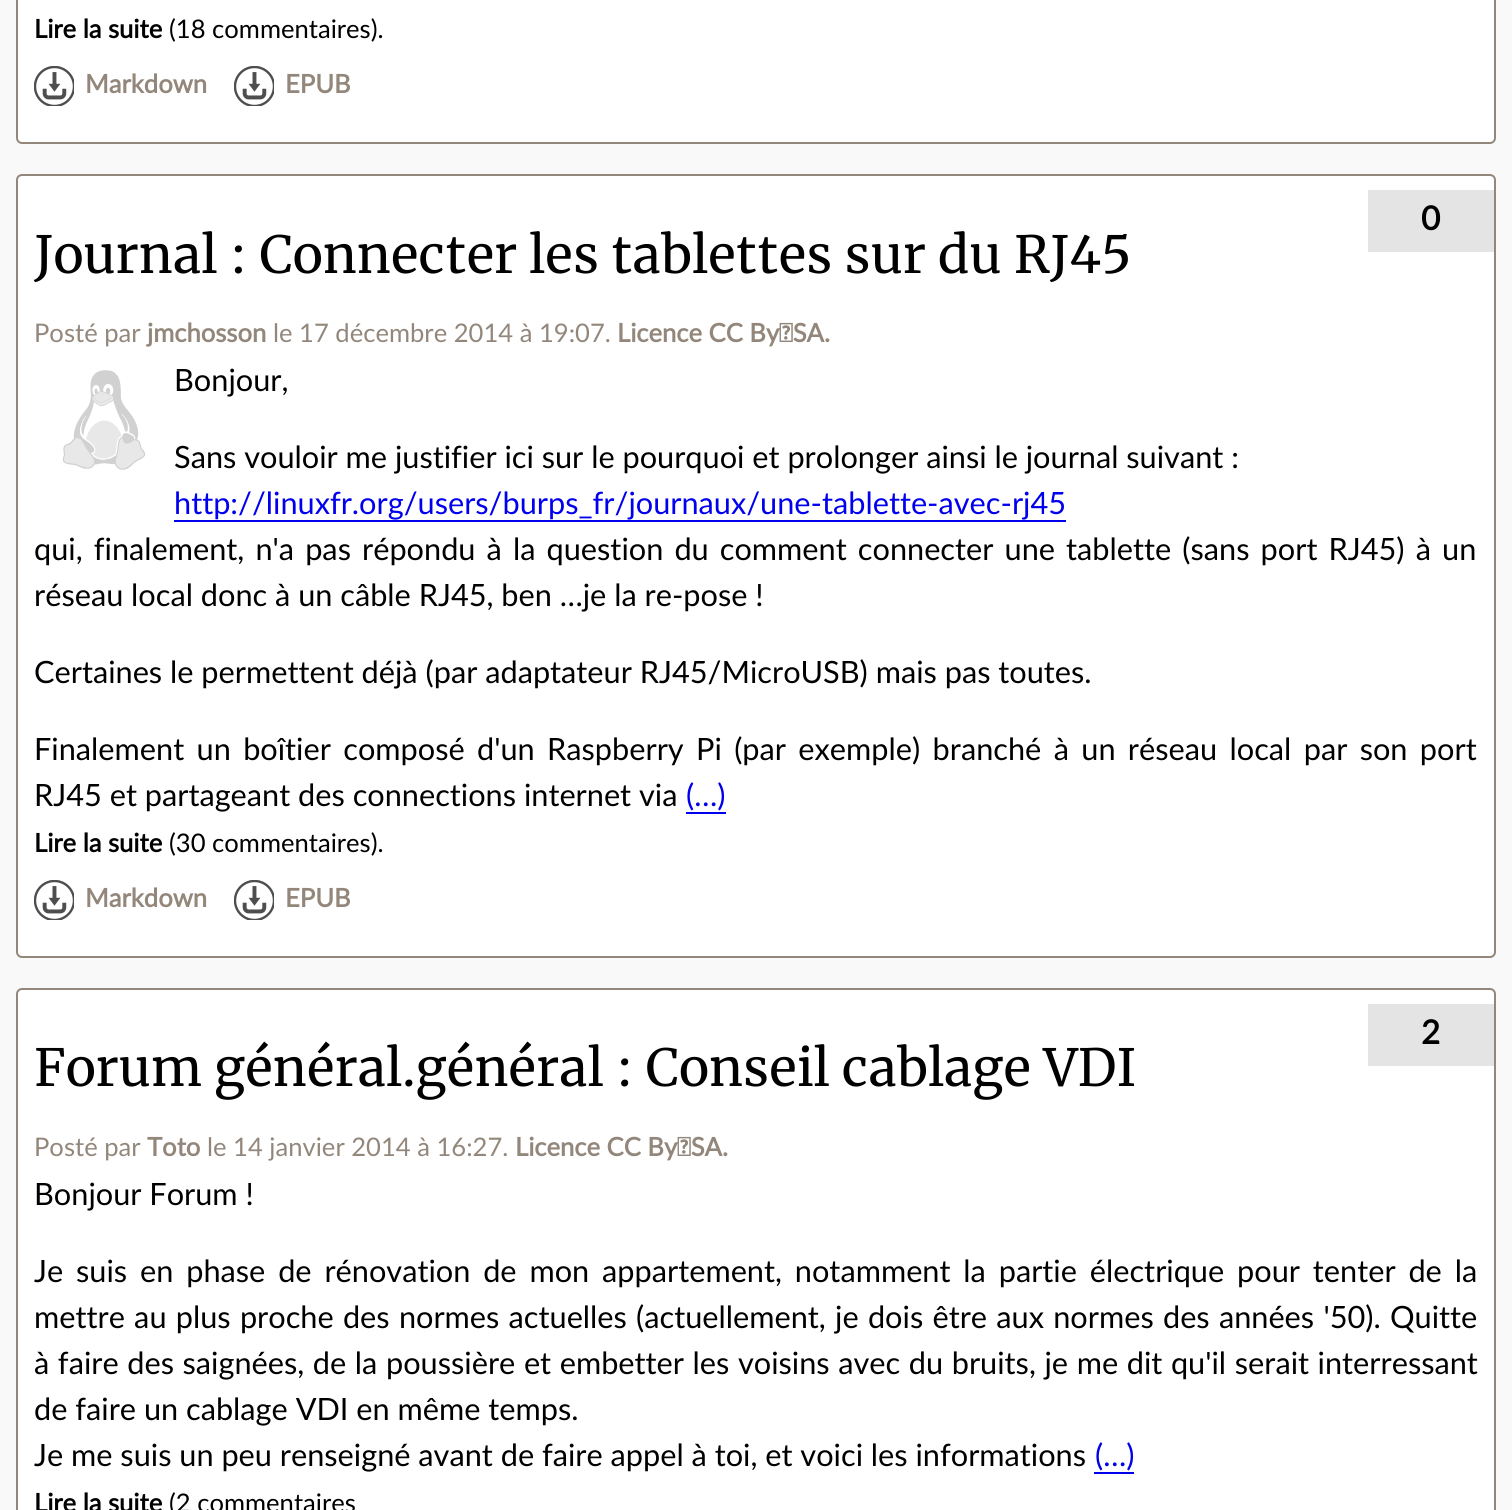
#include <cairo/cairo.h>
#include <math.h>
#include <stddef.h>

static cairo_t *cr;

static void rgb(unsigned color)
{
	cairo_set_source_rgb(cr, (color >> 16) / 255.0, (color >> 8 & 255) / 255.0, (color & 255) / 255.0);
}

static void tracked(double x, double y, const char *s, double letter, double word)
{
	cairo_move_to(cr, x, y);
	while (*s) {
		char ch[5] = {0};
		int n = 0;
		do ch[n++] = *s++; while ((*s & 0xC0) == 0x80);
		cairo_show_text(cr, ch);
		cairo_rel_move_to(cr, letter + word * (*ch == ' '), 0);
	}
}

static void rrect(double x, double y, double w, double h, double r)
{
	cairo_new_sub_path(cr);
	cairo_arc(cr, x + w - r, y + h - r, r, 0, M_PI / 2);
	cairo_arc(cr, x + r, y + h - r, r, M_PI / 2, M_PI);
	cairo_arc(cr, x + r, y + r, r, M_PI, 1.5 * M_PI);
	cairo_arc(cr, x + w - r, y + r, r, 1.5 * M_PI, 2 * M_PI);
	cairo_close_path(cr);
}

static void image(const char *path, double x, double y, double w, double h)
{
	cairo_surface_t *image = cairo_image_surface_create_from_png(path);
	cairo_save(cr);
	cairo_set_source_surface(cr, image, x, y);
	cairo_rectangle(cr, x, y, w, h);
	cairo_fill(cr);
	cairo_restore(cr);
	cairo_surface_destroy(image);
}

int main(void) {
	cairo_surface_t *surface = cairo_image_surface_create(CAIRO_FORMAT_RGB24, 1512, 1510);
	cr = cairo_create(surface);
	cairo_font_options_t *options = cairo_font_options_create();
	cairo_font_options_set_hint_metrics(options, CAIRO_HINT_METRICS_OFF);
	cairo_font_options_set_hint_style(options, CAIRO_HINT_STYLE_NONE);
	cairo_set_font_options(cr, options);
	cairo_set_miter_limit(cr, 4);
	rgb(0xf9f9f9);
	cairo_paint(cr);
	rgb(0xffffff);
	rrect(17, -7, 1478, 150, 5);
	cairo_fill_preserve(cr);
	rgb(0x93877b);
	cairo_stroke(cr);
	image("img/1.png", 34, 66, 40, 40);
	image("img/1.png", 234, 66, 40, 40);
	rgb(0xffffff);
	rrect(17, 175, 1478, 782, 5);
	cairo_fill_preserve(cr);
	rgb(0x93877b);
	cairo_stroke(cr);
	rgb(0xe4e4e4);
	cairo_rectangle(cr, 1368, 190, 126, 62);
	cairo_fill(cr);
	image("img/2.png", 62, 370, 84, 100);
	rgb(0x0000ee);
	cairo_rectangle(cr, 174, 520, 892, 2);
	cairo_fill(cr);
	cairo_rectangle(cr, 686, 812, 40, 2);
	cairo_fill(cr);
	image("img/1.png", 34, 880, 40, 40);
	image("img/1.png", 234, 880, 40, 40);
	rgb(0xffffff);
	rrect(17, 989, 1478, 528, 5);
	cairo_fill_preserve(cr);
	rgb(0x93877b);
	cairo_stroke(cr);
	rgb(0xe4e4e4);
	cairo_rectangle(cr, 1368, 1004, 126, 62);
	cairo_fill(cr);
	rgb(0x0000ee);
	cairo_rectangle(cr, 1094, 1472, 40, 2);
	cairo_fill(cr);
	cairo_select_font_face(cr, "Lato", CAIRO_FONT_SLANT_NORMAL, CAIRO_FONT_WEIGHT_BOLD);
	cairo_set_font_size(cr, 25.6);
	rgb(0x000000);
	cairo_move_to(cr, 34, 38);
	cairo_show_text(cr, "Lire la suite");
	cairo_select_font_face(cr, "Lato", CAIRO_FONT_SLANT_NORMAL, CAIRO_FONT_WEIGHT_NORMAL);
	cairo_move_to(cr, 169, 38);
	cairo_show_text(cr, "(18 commentaires).");
	cairo_select_font_face(cr, "Lato", CAIRO_FONT_SLANT_NORMAL, CAIRO_FONT_WEIGHT_BOLD);
	rgb(0x93877b);
	cairo_move_to(cr, 85, 93);
	cairo_show_text(cr, "Markdown");
	cairo_move_to(cr, 285, 93);
	cairo_show_text(cr, "EPUB");
	cairo_set_font_size(cr, 33);
	rgb(0x000000);
	cairo_move_to(cr, 1421, 230);
	cairo_show_text(cr, "0");
	cairo_select_font_face(cr, "Merriweather", CAIRO_FONT_SLANT_NORMAL, CAIRO_FONT_WEIGHT_NORMAL);
	cairo_set_font_size(cr, 51.2);
	cairo_move_to(cr, 34, 273);
	cairo_show_text(cr, "Journal : Connecter les tablettes sur du RJ45");
	cairo_select_font_face(cr, "Lato", CAIRO_FONT_SLANT_NORMAL, CAIRO_FONT_WEIGHT_NORMAL);
	cairo_set_font_size(cr, 25.6);
	rgb(0x93877b);
	cairo_move_to(cr, 34, 342);
	cairo_show_text(cr, "Posté par");
	cairo_select_font_face(cr, "Lato", CAIRO_FONT_SLANT_NORMAL, CAIRO_FONT_WEIGHT_BOLD);
	cairo_move_to(cr, 147, 342);
	cairo_show_text(cr, "jmchosson");
	cairo_select_font_face(cr, "Lato", CAIRO_FONT_SLANT_NORMAL, CAIRO_FONT_WEIGHT_NORMAL);
	cairo_move_to(cr, 273, 342);
	cairo_show_text(cr, "le 17 décembre 2014 à 19:07.");
	cairo_select_font_face(cr, "Lato", CAIRO_FONT_SLANT_NORMAL, CAIRO_FONT_WEIGHT_BOLD);
	cairo_move_to(cr, 617, 342);
	cairo_show_text(cr, "Licence CC By‑SA.");
	cairo_select_font_face(cr, "Lato", CAIRO_FONT_SLANT_NORMAL, CAIRO_FONT_WEIGHT_NORMAL);
	cairo_set_font_size(cr, 30.7);
	rgb(0x000000);
	cairo_move_to(cr, 174, 391);
	cairo_show_text(cr, "Bonjour,");
	cairo_move_to(cr, 174, 468);
	cairo_show_text(cr, "Sans vouloir me justifier ici sur le pourquoi et prolonger ainsi le journal suivant :");
	rgb(0x0000ee);
	cairo_move_to(cr, 174, 514);
	cairo_show_text(cr, "http://linuxfr.org/users/burps_fr/journaux/une-tablette-avec-rj45");
	rgb(0x000000);
	tracked(34, 560, "qui, finalement, n'a pas répondu à la question du comment connecter une tablette (sans port RJ45) à un", 0, 3.25);
	cairo_move_to(cr, 34, 606);
	cairo_show_text(cr, "réseau local donc à un câble RJ45, ben …je la re-pose !");
	cairo_move_to(cr, 34, 683);
	cairo_show_text(cr, "Certaines le permettent déjà (par adaptateur RJ45/MicroUSB) mais pas toutes.");
	tracked(34, 760, "Finalement un boîtier composé d'un Raspberry Pi (par exemple) branché à un réseau local par son port", 0, 4.5);
	cairo_move_to(cr, 34, 806);
	cairo_show_text(cr, "RJ45 et partageant des connections internet via");
	rgb(0x0000ee);
	cairo_move_to(cr, 686, 806);
	cairo_show_text(cr, "(…)");
	cairo_select_font_face(cr, "Lato", CAIRO_FONT_SLANT_NORMAL, CAIRO_FONT_WEIGHT_BOLD);
	cairo_set_font_size(cr, 25.6);
	rgb(0x000000);
	cairo_move_to(cr, 34, 852);
	cairo_show_text(cr, "Lire la suite");
	cairo_select_font_face(cr, "Lato", CAIRO_FONT_SLANT_NORMAL, CAIRO_FONT_WEIGHT_NORMAL);
	cairo_move_to(cr, 169, 852);
	cairo_show_text(cr, "(30 commentaires).");
	cairo_select_font_face(cr, "Lato", CAIRO_FONT_SLANT_NORMAL, CAIRO_FONT_WEIGHT_BOLD);
	rgb(0x93877b);
	cairo_move_to(cr, 85, 907);
	cairo_show_text(cr, "Markdown");
	cairo_move_to(cr, 285, 907);
	cairo_show_text(cr, "EPUB");
	cairo_set_font_size(cr, 33);
	rgb(0x000000);
	cairo_move_to(cr, 1421, 1044);
	cairo_show_text(cr, "2");
	cairo_select_font_face(cr, "Merriweather", CAIRO_FONT_SLANT_NORMAL, CAIRO_FONT_WEIGHT_NORMAL);
	cairo_set_font_size(cr, 51.2);
	cairo_move_to(cr, 34, 1086);
	cairo_show_text(cr, "Forum général.général : Conseil cablage VDI");
	cairo_select_font_face(cr, "Lato", CAIRO_FONT_SLANT_NORMAL, CAIRO_FONT_WEIGHT_NORMAL);
	cairo_set_font_size(cr, 25.6);
	rgb(0x93877b);
	cairo_move_to(cr, 34, 1156);
	cairo_show_text(cr, "Posté par");
	cairo_select_font_face(cr, "Lato", CAIRO_FONT_SLANT_NORMAL, CAIRO_FONT_WEIGHT_BOLD);
	cairo_move_to(cr, 147, 1156);
	cairo_show_text(cr, "Toto");
	cairo_select_font_face(cr, "Lato", CAIRO_FONT_SLANT_NORMAL, CAIRO_FONT_WEIGHT_NORMAL);
	cairo_move_to(cr, 207, 1156);
	cairo_show_text(cr, "le 14 janvier 2014 à 16:27.");
	cairo_select_font_face(cr, "Lato", CAIRO_FONT_SLANT_NORMAL, CAIRO_FONT_WEIGHT_BOLD);
	cairo_move_to(cr, 515, 1156);
	cairo_show_text(cr, "Licence CC By‑SA.");
	cairo_select_font_face(cr, "Lato", CAIRO_FONT_SLANT_NORMAL, CAIRO_FONT_WEIGHT_NORMAL);
	cairo_set_font_size(cr, 30.7);
	rgb(0x000000);
	cairo_move_to(cr, 34, 1205);
	cairo_show_text(cr, "Bonjour Forum !");
	tracked(34, 1282, "Je suis en phase de rénovation de mon appartement, notamment la partie électrique pour tenter de la", 0, 5);
	tracked(34, 1328, "mettre au plus proche des normes actuelles (actuellement, je dois être aux normes des années '50). Quitte", 0, 1.4);
	tracked(34, 1374, "à faire des saignées, de la poussière et embetter les voisins avec du bruits, je me dit qu'il serait interressant", 0, 0.75);
	cairo_move_to(cr, 34, 1420);
	cairo_show_text(cr, "de faire un cablage VDI en même temps.");
	cairo_move_to(cr, 34, 1466);
	cairo_show_text(cr, "Je me suis un peu renseigné avant de faire appel à toi, et voici les informations");
	rgb(0x0000ee);
	cairo_move_to(cr, 1095, 1466);
	cairo_show_text(cr, "(…)");
	cairo_select_font_face(cr, "Lato", CAIRO_FONT_SLANT_NORMAL, CAIRO_FONT_WEIGHT_BOLD);
	cairo_set_font_size(cr, 25.6);
	rgb(0x000000);
	cairo_move_to(cr, 34, 1512);
	cairo_show_text(cr, "Lire la suite");
	cairo_select_font_face(cr, "Lato", CAIRO_FONT_SLANT_NORMAL, CAIRO_FONT_WEIGHT_NORMAL);
	cairo_move_to(cr, 169, 1512);
	cairo_show_text(cr, "(2 commentaires");
	cairo_surface_write_to_png(surface, "page.png");
	cairo_font_options_destroy(options);
	cairo_destroy(cr);
	cairo_surface_destroy(surface);
	return 0;
}
